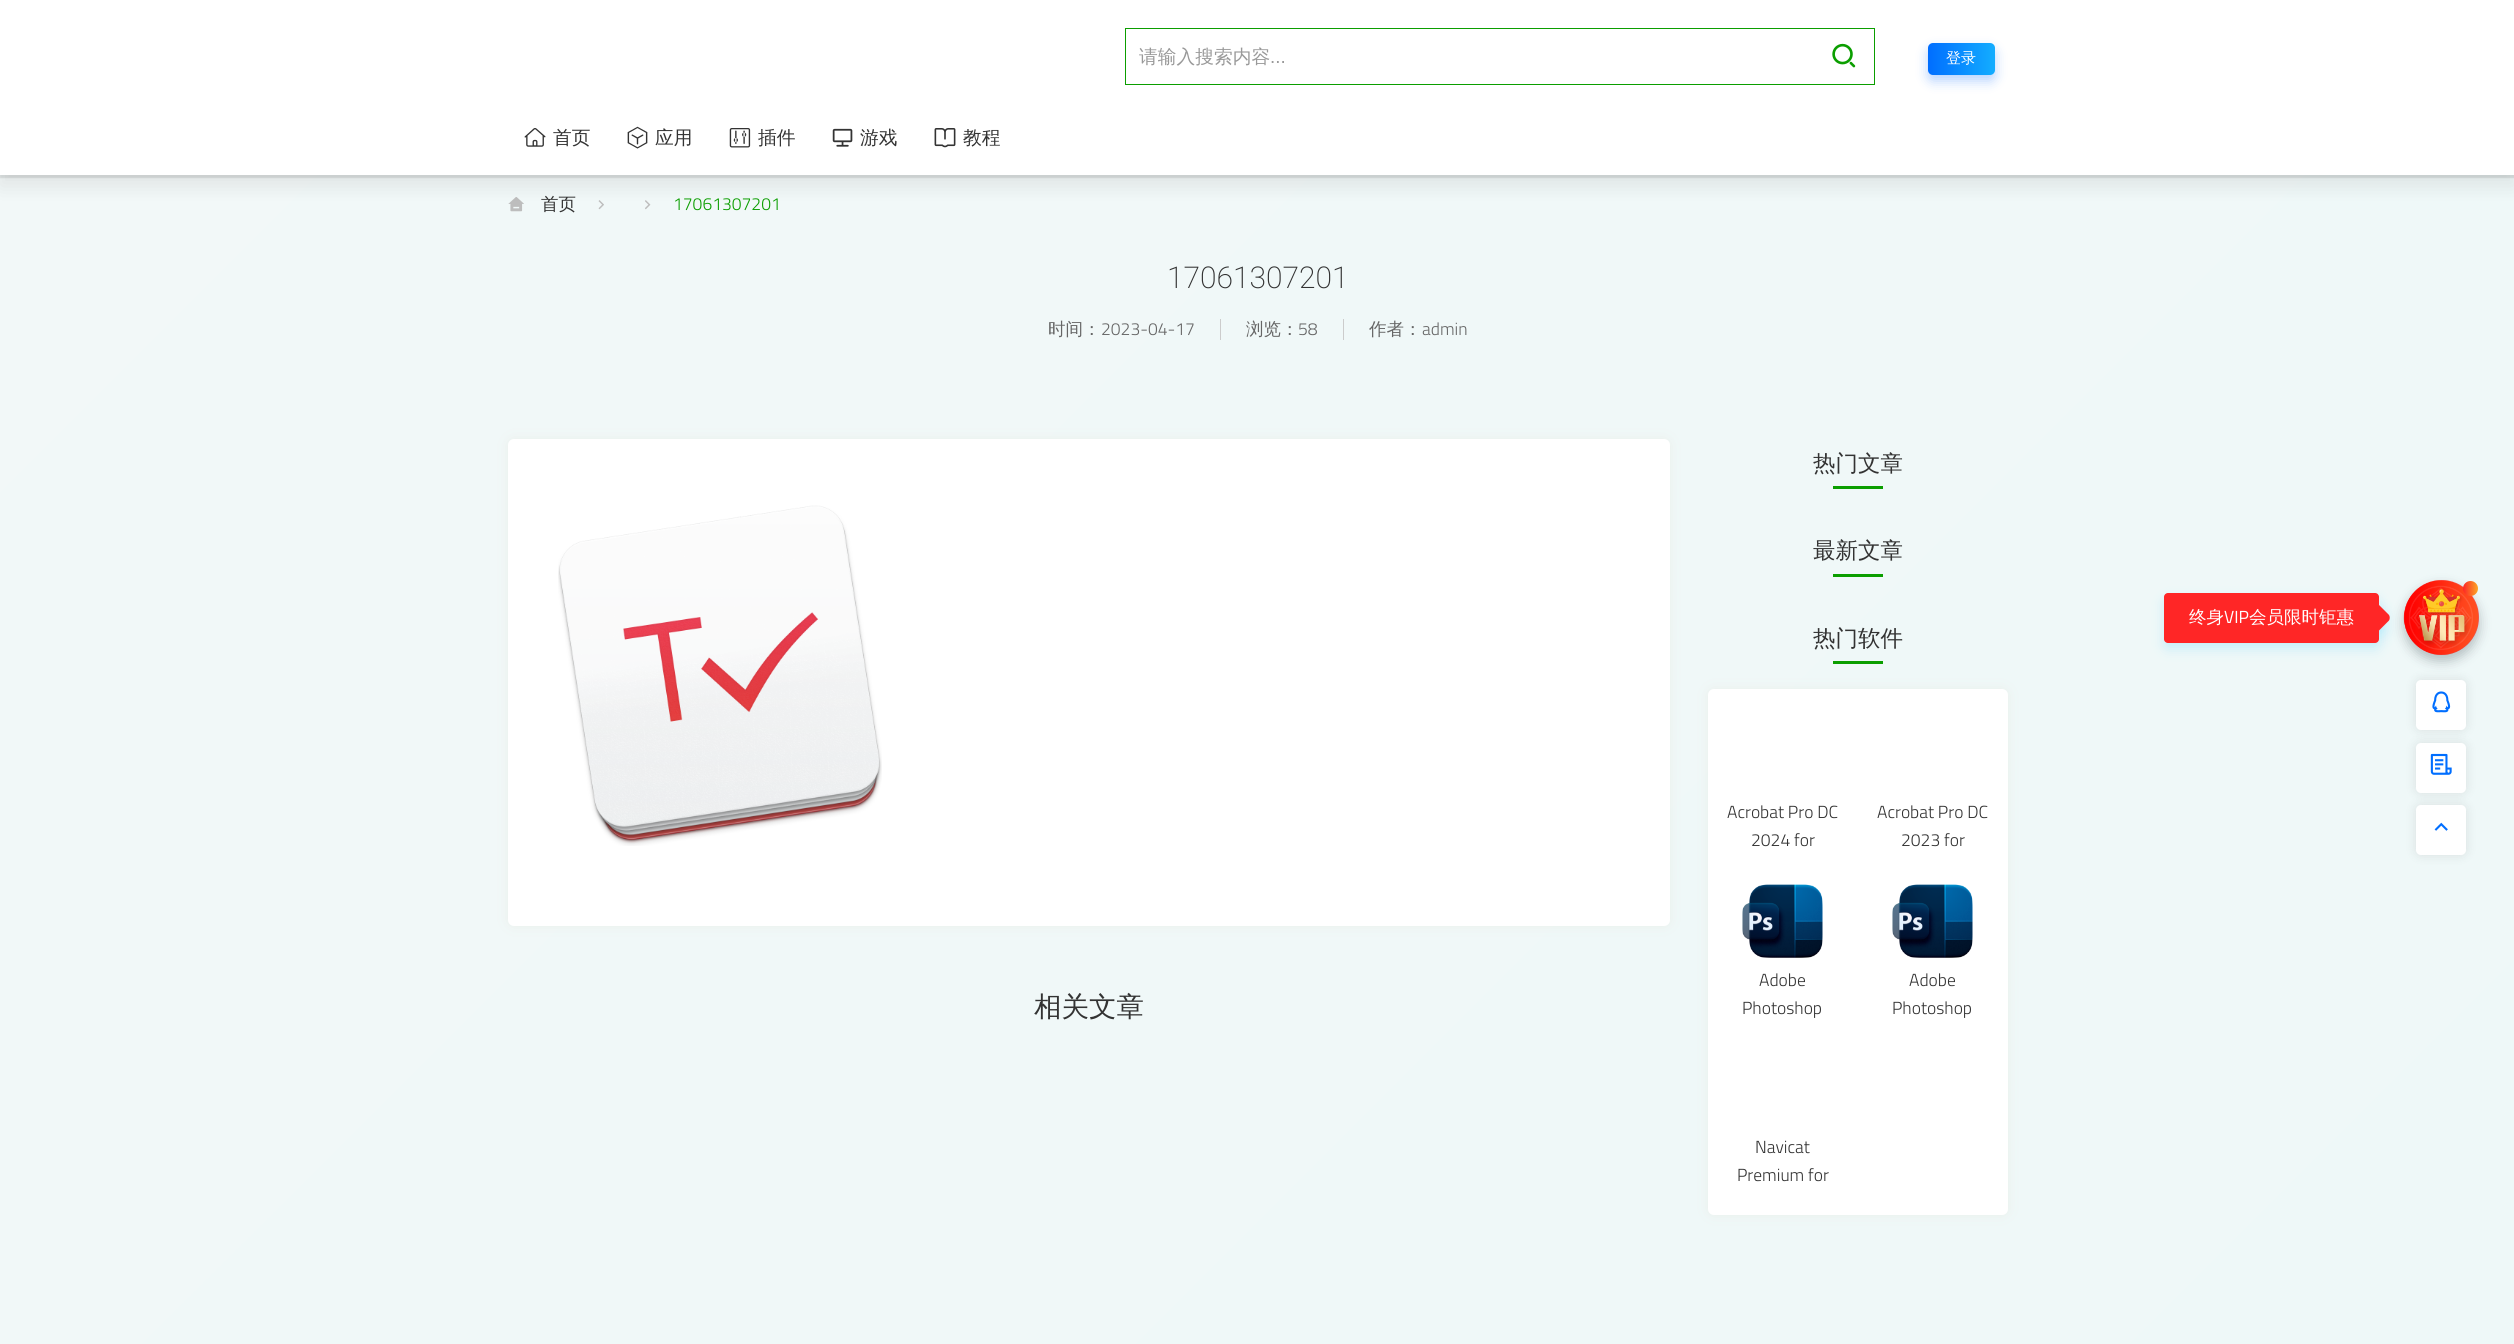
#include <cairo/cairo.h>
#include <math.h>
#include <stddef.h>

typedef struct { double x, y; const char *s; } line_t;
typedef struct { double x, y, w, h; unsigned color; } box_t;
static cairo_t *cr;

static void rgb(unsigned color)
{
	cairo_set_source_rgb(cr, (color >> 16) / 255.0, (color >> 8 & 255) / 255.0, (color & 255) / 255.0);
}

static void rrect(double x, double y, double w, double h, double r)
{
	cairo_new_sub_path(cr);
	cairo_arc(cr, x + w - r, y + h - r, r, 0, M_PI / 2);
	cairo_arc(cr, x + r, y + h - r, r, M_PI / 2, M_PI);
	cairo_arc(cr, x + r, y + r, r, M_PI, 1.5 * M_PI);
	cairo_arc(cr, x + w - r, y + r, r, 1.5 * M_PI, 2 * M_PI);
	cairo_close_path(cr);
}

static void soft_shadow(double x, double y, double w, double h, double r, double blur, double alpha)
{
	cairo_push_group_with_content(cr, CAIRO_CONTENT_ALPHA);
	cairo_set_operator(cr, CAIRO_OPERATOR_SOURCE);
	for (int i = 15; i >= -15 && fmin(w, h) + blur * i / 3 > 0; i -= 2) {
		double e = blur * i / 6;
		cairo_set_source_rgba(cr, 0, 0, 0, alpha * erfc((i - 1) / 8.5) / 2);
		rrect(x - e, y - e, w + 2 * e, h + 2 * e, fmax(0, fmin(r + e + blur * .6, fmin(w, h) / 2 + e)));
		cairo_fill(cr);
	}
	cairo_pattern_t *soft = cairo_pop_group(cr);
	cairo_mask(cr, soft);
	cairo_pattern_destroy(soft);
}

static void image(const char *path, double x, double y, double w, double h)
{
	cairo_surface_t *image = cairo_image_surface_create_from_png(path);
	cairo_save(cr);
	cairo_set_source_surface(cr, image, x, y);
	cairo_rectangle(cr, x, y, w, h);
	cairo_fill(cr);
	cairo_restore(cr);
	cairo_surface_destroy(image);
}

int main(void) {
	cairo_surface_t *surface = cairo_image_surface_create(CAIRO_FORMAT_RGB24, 2514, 1344);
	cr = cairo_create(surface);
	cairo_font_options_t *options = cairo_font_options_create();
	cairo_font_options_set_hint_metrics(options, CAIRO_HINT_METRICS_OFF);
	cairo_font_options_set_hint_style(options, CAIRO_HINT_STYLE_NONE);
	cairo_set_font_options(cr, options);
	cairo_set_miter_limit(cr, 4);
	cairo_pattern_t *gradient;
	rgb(0xffffff);
	cairo_paint(cr);
	gradient = cairo_pattern_create_linear(2271, 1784, 244, -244);
	cairo_pattern_add_color_stop_rgba(gradient, 0, 0.933, 0.973, 0.973, 1);
	cairo_pattern_add_color_stop_rgba(gradient, 1, 0.949, 0.973, 0.973, 1);
	cairo_set_source(cr, gradient);
	cairo_pattern_destroy(gradient);
	cairo_rectangle(cr, 0, 175, 2514, 1169);
	cairo_fill(cr);
	image("img/7.png", 508, 197, 16, 15);
	image("img/8.png", 598, 200, 6, 10);
	image("img/9.png", 645, 200, 6, 10);
	rgb(0x000000);
	soft_shadow(0, 11, 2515, 175, 0, 10, 0.08);
	soft_shadow(0, 3, 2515, 175, 0, 0.5, 0.1);
	rgb(0xffffff);
	cairo_rectangle(cr, 0, 0, 2514, 175);
	cairo_fill(cr);
	cairo_rectangle(cr, 1125.5, 28.5, 749, 56);
	rgb(0x0b9e00);
	cairo_set_line_width(cr, 1);
	cairo_stroke(cr);
	image("img/1.png", 1832, 43, 24, 25);
	rgb(0x106efd);
	soft_shadow(1928, 49, 67, 32, 5, 6, 0.3);
	gradient = cairo_pattern_create_linear(1928, 59, 1995, 59);
	cairo_pattern_add_color_stop_rgba(gradient, 0, 0, 0.431, 1, 1);
	cairo_pattern_add_color_stop_rgba(gradient, 1, 0.075, 0.678, 1, 1);
	cairo_set_source(cr, gradient);
	cairo_pattern_destroy(gradient);
	rrect(1928, 43, 67, 32, 5);
	cairo_fill(cr);
	image("img/2.png", 524, 128, 22, 19);
	image("img/3.png", 627, 126, 21, 23);
	image("img/4.png", 729, 128, 22, 20);
	image("img/5.png", 832, 128, 21, 19);
	image("img/6.png", 934, 128, 22, 20);
	rgb(0xcccccc);
	cairo_rectangle(cr, 1220, 319, 1, 21);
	cairo_fill(cr);
	cairo_rectangle(cr, 1343, 319, 1, 21);
	cairo_fill(cr);
	rgb(0xeaefea);
	soft_shadow(508, 439, 1162, 487, 6, 6, 1);
	rgb(0xffffff);
	rrect(508, 439, 1162, 487, 6);
	cairo_fill(cr);
	image("img/10.png", 558, 505, 324, 341);
	{
		static const box_t items[] = {
			{1833, 486, 50, 3, 0x0b9e00},
			{1833, 574, 50, 3, 0x0b9e00},
			{1833, 661, 50, 3, 0x0b9e00},
		};
		for (size_t i = 0; i < sizeof items / sizeof *items; i++) {
			rgb(items[i].color);
			cairo_rectangle(cr, items[i].x, items[i].y, items[i].w, items[i].h);
			cairo_fill(cr);
		}
	}
	rgb(0xeaefea);
	soft_shadow(1708, 689, 300, 526, 6, 6, 1);
	rgb(0xffffff);
	rrect(1708, 689, 300, 526, 6);
	cairo_fill(cr);
	image("img/11.png", 1742, 884, 81, 74);
	image("img/12.png", 1892, 884, 81, 74);
	rgb(0x233238);
	soft_shadow(2404, 586, 75, 75, 37.5, 6, 0.3);
	rgb(0x26c7fc);
	soft_shadow(2361, 611, 25, 25, 4, 6.5, 0.2);
	cairo_set_source_rgba(cr, 1, 0, 0, 0.25);
	cairo_arc(cr, 2441.5, 617.5, 37.5, 0, 2 * M_PI);
	cairo_fill(cr);
	cairo_arc(cr, 2441.5, 617.5, 37.5, 0, 2 * M_PI);
	cairo_fill(cr);
	cairo_arc(cr, 2441.5, 617.5, 37.5, 0, 2 * M_PI);
	cairo_fill(cr);
	image("img/13.png", 2403, 580, 76, 75);
	gradient = cairo_pattern_create_linear(2463, 589, 2478, 589);
	cairo_pattern_add_color_stop_rgba(gradient, 0, 0.988, 0.149, 0.149, 1);
	cairo_pattern_add_color_stop_rgba(gradient, 1, 0.988, 0.651, 0.149, 1);
	cairo_set_source(cr, gradient);
	cairo_pattern_destroy(gradient);
	cairo_arc(cr, 2470.5, 588.5, 7.5, 0, 2 * M_PI);
	cairo_fill(cr);
	rgb(0x26c7fc);
	soft_shadow(2164, 599, 215, 50, 4, 6, 0.2);
	rgb(0xff2626);
	cairo_new_path(cr);
	cairo_move_to(cr, 2358.5, 615);
	cairo_line_to(cr, 2371, 602.5);
	cairo_curve_to(cr, 2372.5, 601, 2375, 601, 2376.5, 602.5);
	cairo_line_to(cr, 2389, 615);
	cairo_curve_to(cr, 2390, 616.5, 2390, 619, 2389, 620.5);
	cairo_line_to(cr, 2376.5, 633);
	cairo_curve_to(cr, 2375, 634, 2372.5, 634, 2371, 633);
	cairo_line_to(cr, 2358.5, 620.5);
	cairo_curve_to(cr, 2357.5, 619, 2357.5, 616.5, 2358.5, 615);
	cairo_close_path(cr);
	cairo_fill(cr);
	rrect(2164, 593, 215, 50, 4);
	cairo_fill(cr);
	rgb(0x000000);
	soft_shadow(2416, 680, 50, 50, 5, 5.5, 0.1);
	rgb(0xffffff);
	rrect(2416, 680, 50, 50, 5);
	cairo_fill(cr);
	image("img/14.png", 2432, 691, 19, 22);
	rgb(0x000000);
	soft_shadow(2416, 743, 50, 50, 5, 5.5, 0.1);
	rgb(0xffffff);
	rrect(2416, 743, 50, 50, 5);
	cairo_fill(cr);
	image("img/15.png", 2430, 753, 22, 22);
	rgb(0x000000);
	soft_shadow(2416, 805, 50, 50, 5, 5.5, 0.1);
	rgb(0xffffff);
	rrect(2416, 805, 50, 50, 5);
	cairo_fill(cr);
	image("img/16.png", 2434, 822, 14, 9);
	cairo_select_font_face(cr, "WenQuanYi Zen Hei Medium", CAIRO_FONT_SLANT_NORMAL, CAIRO_FONT_WEIGHT_NORMAL);
	cairo_set_font_size(cr, 18.75);
	rgb(0x999999);
	cairo_move_to(cr, 1139, 63);
	cairo_show_text(cr, "请输入搜索内容");
	cairo_select_font_face(cr, "Liberation Sans", CAIRO_FONT_SLANT_NORMAL, CAIRO_FONT_WEIGHT_NORMAL);
	cairo_move_to(cr, 1270, 63);
	cairo_show_text(cr, "...");
	cairo_select_font_face(cr, "WenQuanYi Zen Hei Medium", CAIRO_FONT_SLANT_NORMAL, CAIRO_FONT_WEIGHT_NORMAL);
	cairo_set_font_size(cr, 15);
	rgb(0xffffff);
	cairo_move_to(cr, 1946, 63);
	cairo_show_text(cr, "登录");
	cairo_set_font_size(cr, 18.75);
	rgb(0x333333);
	{
		static const line_t items[] = {
			{553, 144, "首页"},
			{655, 144, "应用"},
			{758, 144, "插件"},
			{860, 144, "游戏"},
			{963, 144, "教程"},
		};
		for (size_t i = 0; i < sizeof items / sizeof *items; i++) {
			cairo_move_to(cr, items[i].x, items[i].y);
			cairo_show_text(cr, items[i].s);
		}
	}
	cairo_set_font_size(cr, 17.5);
	cairo_move_to(cr, 541, 210);
	cairo_show_text(cr, "首页");
	cairo_select_font_face(cr, "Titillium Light", CAIRO_FONT_SLANT_NORMAL, CAIRO_FONT_WEIGHT_NORMAL);
	rgb(0x0b9e00);
	cairo_move_to(cr, 673, 210);
	cairo_show_text(cr, "17061307201");
	cairo_select_font_face(cr, "Roboto ExtraLight", CAIRO_FONT_SLANT_NORMAL, CAIRO_FONT_WEIGHT_NORMAL);
	cairo_set_font_size(cr, 30);
	rgb(0x333333);
	cairo_move_to(cr, 1167, 288);
	cairo_show_text(cr, "17061307201");
	cairo_select_font_face(cr, "WenQuanYi Zen Hei Medium", CAIRO_FONT_SLANT_NORMAL, CAIRO_FONT_WEIGHT_NORMAL);
	cairo_set_font_size(cr, 17.5);
	rgb(0x666666);
	cairo_move_to(cr, 1048, 335);
	cairo_show_text(cr, "时间：");
	cairo_select_font_face(cr, "Titillium Light", CAIRO_FONT_SLANT_NORMAL, CAIRO_FONT_WEIGHT_NORMAL);
	cairo_move_to(cr, 1101, 335);
	cairo_show_text(cr, "2023-04-17");
	cairo_select_font_face(cr, "WenQuanYi Zen Hei Medium", CAIRO_FONT_SLANT_NORMAL, CAIRO_FONT_WEIGHT_NORMAL);
	cairo_move_to(cr, 1246, 335);
	cairo_show_text(cr, "浏览：");
	cairo_select_font_face(cr, "Titillium Light", CAIRO_FONT_SLANT_NORMAL, CAIRO_FONT_WEIGHT_NORMAL);
	cairo_move_to(cr, 1298, 335);
	cairo_show_text(cr, "58");
	cairo_select_font_face(cr, "WenQuanYi Zen Hei Medium", CAIRO_FONT_SLANT_NORMAL, CAIRO_FONT_WEIGHT_NORMAL);
	cairo_move_to(cr, 1369, 335);
	cairo_show_text(cr, "作者：");
	cairo_select_font_face(cr, "Titillium Light", CAIRO_FONT_SLANT_NORMAL, CAIRO_FONT_WEIGHT_NORMAL);
	cairo_move_to(cr, 1422, 335);
	cairo_show_text(cr, "admin");
	cairo_select_font_face(cr, "WenQuanYi Zen Hei Medium", CAIRO_FONT_SLANT_NORMAL, CAIRO_FONT_WEIGHT_NORMAL);
	cairo_set_font_size(cr, 27.5);
	rgb(0x333333);
	cairo_move_to(cr, 1034, 1016);
	cairo_show_text(cr, "相关文章");
	cairo_set_font_size(cr, 22.5);
	{
		static const line_t items[] = {
			{1813, 471, "热门文章"},
			{1813, 558, "最新文章"},
			{1813, 646, "热门软件"},
		};
		for (size_t i = 0; i < sizeof items / sizeof *items; i++) {
			cairo_move_to(cr, items[i].x, items[i].y);
			cairo_show_text(cr, items[i].s);
		}
	}
	cairo_select_font_face(cr, "Titillium Light", CAIRO_FONT_SLANT_NORMAL, CAIRO_FONT_WEIGHT_NORMAL);
	cairo_set_font_size(cr, 17.5);
	{
		static const line_t items[] = {
			{1727, 818, "Acrobat Pro DC"},
			{1751, 846, "2024 for"},
			{1877, 818, "Acrobat Pro DC"},
			{1901, 846, "2023 for"},
			{1759, 986, "Adobe"},
			{1742, 1014, "Photoshop"},
			{1909, 986, "Adobe"},
			{1892, 1014, "Photoshop"},
			{1755, 1153, "Navicat"},
			{1737, 1181, "Premium for"},
		};
		for (size_t i = 0; i < sizeof items / sizeof *items; i++) {
			cairo_move_to(cr, items[i].x, items[i].y);
			cairo_show_text(cr, items[i].s);
		}
	}
	cairo_select_font_face(cr, "WenQuanYi Zen Hei Medium", CAIRO_FONT_SLANT_NORMAL, CAIRO_FONT_WEIGHT_NORMAL);
	rgb(0xffffff);
	cairo_move_to(cr, 2189, 623);
	cairo_show_text(cr, "终身");
	cairo_select_font_face(cr, "Titillium", CAIRO_FONT_SLANT_NORMAL, CAIRO_FONT_WEIGHT_NORMAL);
	cairo_move_to(cr, 2224, 623);
	cairo_show_text(cr, "VIP");
	cairo_select_font_face(cr, "WenQuanYi Zen Hei Medium", CAIRO_FONT_SLANT_NORMAL, CAIRO_FONT_WEIGHT_NORMAL);
	cairo_move_to(cr, 2249, 623);
	cairo_show_text(cr, "会员限时钜惠");
	cairo_surface_write_to_png(surface, "page.png");
	cairo_font_options_destroy(options);
	cairo_destroy(cr);
	cairo_surface_destroy(surface);
	return 0;
}
